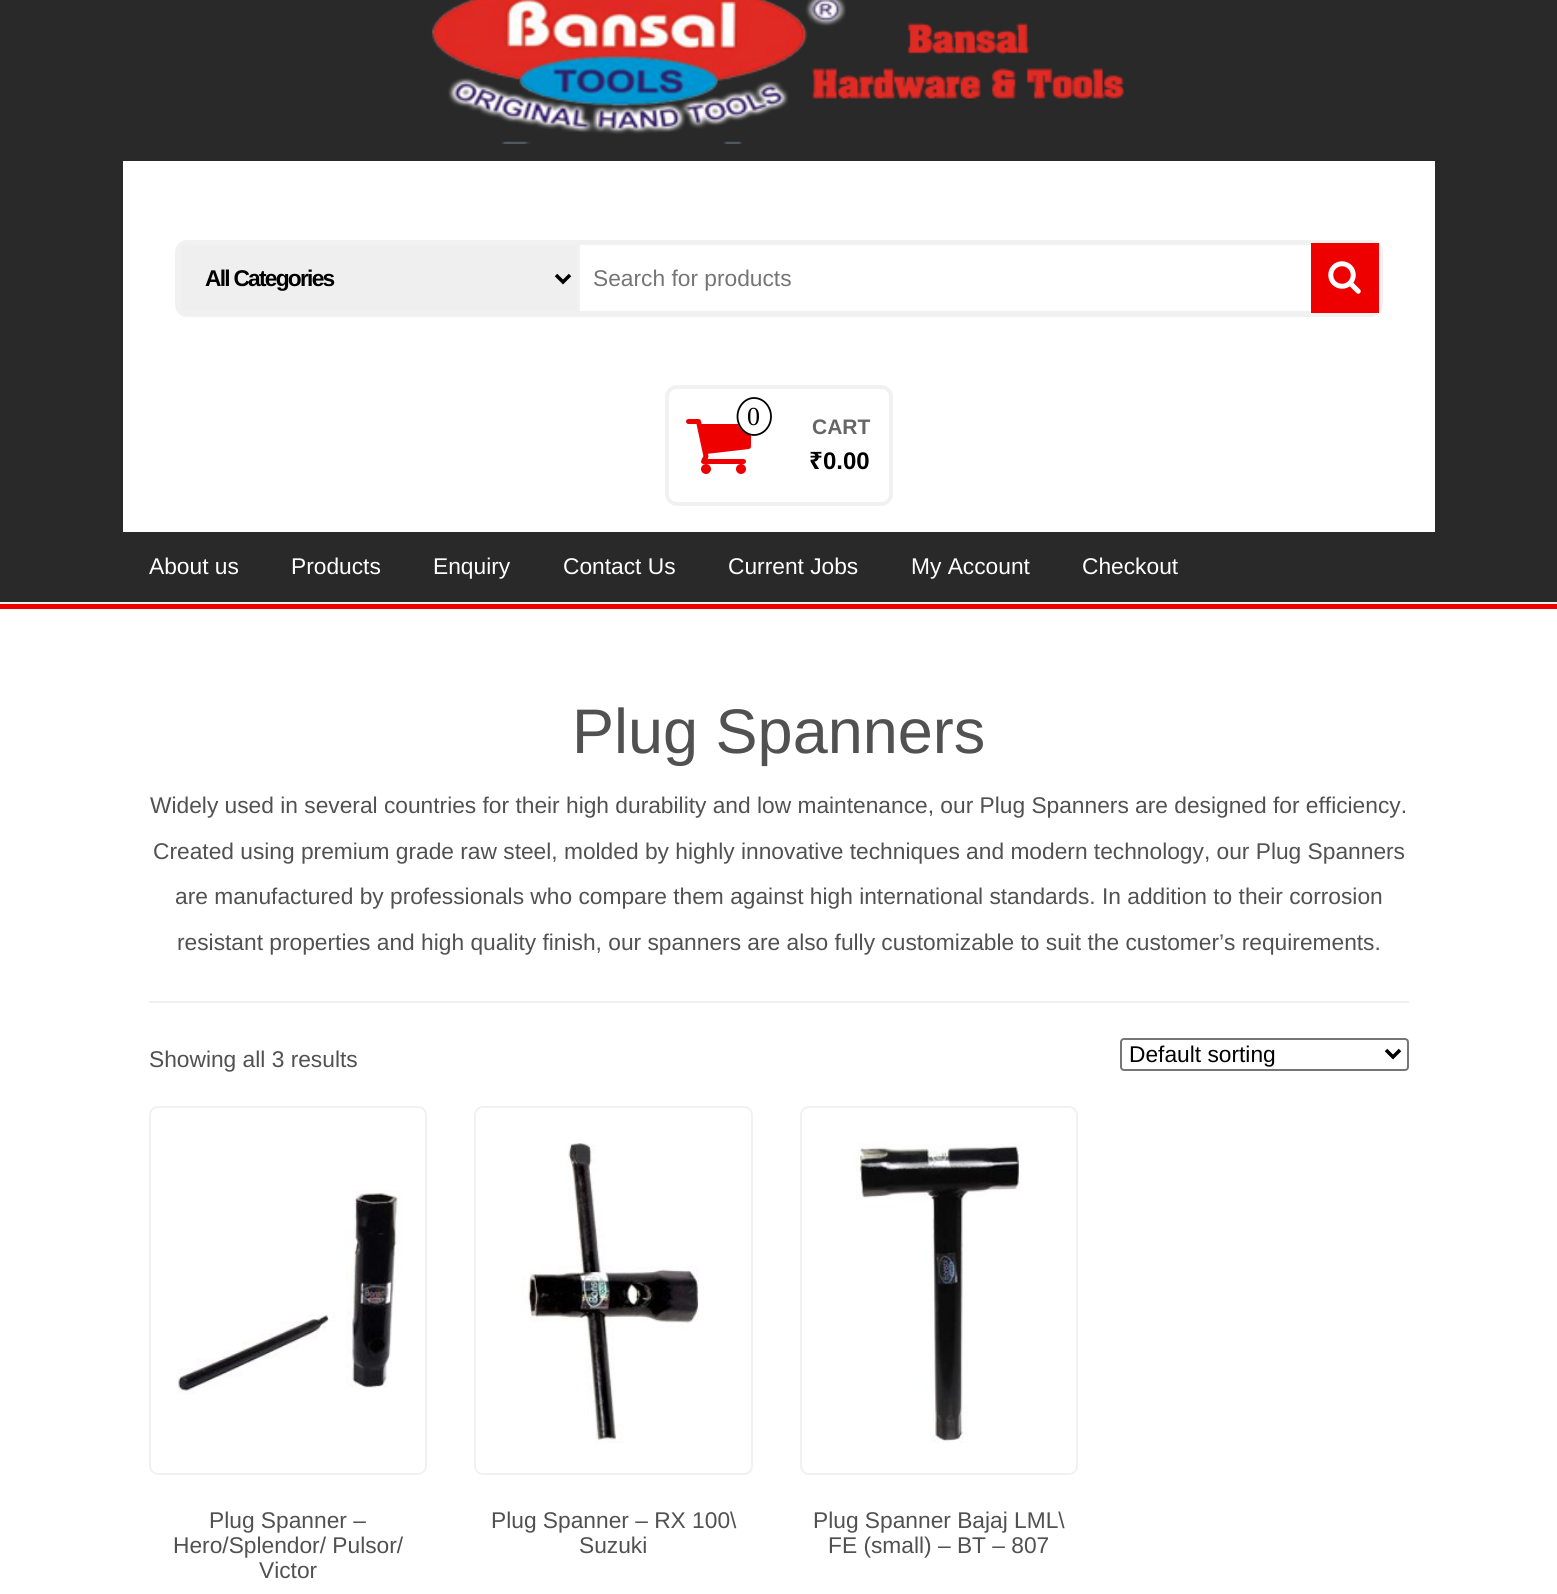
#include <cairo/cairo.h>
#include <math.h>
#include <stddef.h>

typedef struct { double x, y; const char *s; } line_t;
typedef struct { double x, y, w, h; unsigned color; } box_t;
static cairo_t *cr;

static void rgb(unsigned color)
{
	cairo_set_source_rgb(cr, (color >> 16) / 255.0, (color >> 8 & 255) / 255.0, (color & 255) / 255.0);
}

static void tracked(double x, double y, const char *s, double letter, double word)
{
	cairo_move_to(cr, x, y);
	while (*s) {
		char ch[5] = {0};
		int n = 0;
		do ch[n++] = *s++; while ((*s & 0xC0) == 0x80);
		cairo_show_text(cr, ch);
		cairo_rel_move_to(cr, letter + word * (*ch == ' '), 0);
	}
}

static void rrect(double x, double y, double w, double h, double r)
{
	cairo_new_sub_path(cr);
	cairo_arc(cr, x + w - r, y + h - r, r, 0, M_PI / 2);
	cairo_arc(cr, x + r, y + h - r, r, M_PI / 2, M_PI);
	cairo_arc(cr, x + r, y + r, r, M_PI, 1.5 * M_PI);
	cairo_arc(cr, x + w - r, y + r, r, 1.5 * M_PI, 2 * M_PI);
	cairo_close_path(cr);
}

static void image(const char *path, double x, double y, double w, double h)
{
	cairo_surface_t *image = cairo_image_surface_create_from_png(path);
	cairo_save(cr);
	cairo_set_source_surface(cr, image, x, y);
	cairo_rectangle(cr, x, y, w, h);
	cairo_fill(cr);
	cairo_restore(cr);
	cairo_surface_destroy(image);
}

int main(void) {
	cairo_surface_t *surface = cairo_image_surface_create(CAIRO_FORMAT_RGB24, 1557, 1594);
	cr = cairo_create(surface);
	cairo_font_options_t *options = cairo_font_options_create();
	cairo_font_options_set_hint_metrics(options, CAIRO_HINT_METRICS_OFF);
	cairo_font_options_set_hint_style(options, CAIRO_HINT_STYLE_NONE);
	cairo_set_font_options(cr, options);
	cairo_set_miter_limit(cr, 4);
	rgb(0xffffff);
	cairo_paint(cr);
	{
		static const box_t items[] = {
			{0, 604, 1557, 5, 0xef0000},
			{0, 0, 1557, 602, 0x292929},
			{0, 602, 1557, 2, 0xf1f1f1},
		};
		for (size_t i = 0; i < sizeof items / sizeof *items; i++) {
			rgb(items[i].color);
			cairo_rectangle(cr, items[i].x, items[i].y, items[i].w, items[i].h);
			cairo_fill(cr);
		}
	}
	image("img/1.png", 431, 0, 693, 144);
	rgb(0xffffff);
	cairo_rectangle(cr, 123, 161, 1312, 371);
	cairo_fill(cr);
	rrect(177, 242, 1204, 73, 10);
	rgb(0xf1f1f1);
	cairo_set_line_width(cr, 4);
	cairo_stroke(cr);
	rgb(0xefefef);
	cairo_rectangle(cr, 180, 244, 398, 68);
	cairo_fill_preserve(cr);
	rgb(0xf1f1f1);
	cairo_set_line_width(cr, 2);
	cairo_stroke(cr);
	cairo_new_path(cr);
	cairo_move_to(cr, 556, 275);
	cairo_line_to(cr, 563, 282);
	cairo_line_to(cr, 570, 275);
	rgb(0x000000);
	cairo_set_line_width(cr, 3.5);
	cairo_stroke(cr);
	cairo_rectangle(cr, 579, 244, 797, 68);
	rgb(0xf1f1f1);
	cairo_set_line_width(cr, 2);
	cairo_stroke(cr);
	rgb(0xef0000);
	cairo_rectangle(cr, 1311, 243, 68, 70);
	cairo_fill(cr);
	image("img/2.png", 1328, 261, 33, 33);
	rrect(667, 387, 224, 117, 10);
	rgb(0xf1f1f1);
	cairo_set_line_width(cr, 4);
	cairo_stroke(cr);
	image("img/3.png", 686, 419, 65, 55);
	rgb(0xffffff);
	cairo_new_path(cr);
	cairo_move_to(cr, 754, 397.5);
	cairo_curve_to(cr, 763.5, 397.5, 771.5, 406, 771.5, 416.5);
	cairo_curve_to(cr, 771.5, 427, 763.5, 435.5, 754, 435.5);
	cairo_curve_to(cr, 744.5, 435.5, 736.5, 427, 736.5, 416.5);
	cairo_curve_to(cr, 736.5, 406, 744.5, 397.5, 754, 397.5);
	cairo_close_path(cr);
	cairo_fill(cr);
	cairo_new_path(cr);
	cairo_move_to(cr, 754, 398);
	cairo_curve_to(cr, 763.5, 398, 771, 406.5, 771, 416.5);
	cairo_curve_to(cr, 771, 426.5, 763.5, 435, 754, 435);
	cairo_curve_to(cr, 745, 435, 737.5, 426.5, 737.5, 416.5);
	cairo_curve_to(cr, 737.5, 406.5, 745, 398, 754, 398);
	cairo_close_path(cr);
	rgb(0x000000);
	cairo_set_line_width(cr, 1.8);
	cairo_stroke(cr);
	rgb(0xf1f1f1);
	cairo_rectangle(cr, 149, 1001, 1260, 2);
	cairo_fill(cr);
	rrect(1121, 1039, 287, 31, 3);
	rgb(0x767676);
	cairo_set_line_width(cr, 2);
	cairo_stroke(cr);
	cairo_new_path(cr);
	cairo_move_to(cr, 1386, 1050);
	cairo_line_to(cr, 1393, 1057);
	cairo_line_to(cr, 1400, 1050);
	rgb(0x000000);
	cairo_set_line_width(cr, 3.5);
	cairo_stroke(cr);
	rrect(150, 1107, 276, 367, 8);
	rgb(0xf1f1f1);
	cairo_set_line_width(cr, 2);
	cairo_stroke(cr);
	image("img/4.png", 176, 1190, 226, 205);
	rrect(475, 1107, 277, 367, 8);
	cairo_stroke(cr);
	image("img/5.png", 521, 1143, 178, 300);
	rrect(801, 1107, 276, 367, 8);
	cairo_stroke(cr);
	image("img/6.png", 855, 1143, 167, 300);
	cairo_select_font_face(cr, "Liberation Sans", CAIRO_FONT_SLANT_NORMAL, CAIRO_FONT_WEIGHT_BOLD);
	cairo_set_font_size(cr, 22.75);
	rgb(0x000000);
	tracked(205, 286, "All Categories", -1.75, 0);
	cairo_select_font_face(cr, "Liberation Sans", CAIRO_FONT_SLANT_NORMAL, CAIRO_FONT_WEIGHT_NORMAL);
	rgb(0x757575);
	cairo_move_to(cr, 593, 286);
	cairo_show_text(cr, "Search for products");
	cairo_select_font_face(cr, "Liberation Serif", CAIRO_FONT_SLANT_NORMAL, CAIRO_FONT_WEIGHT_NORMAL);
	cairo_set_font_size(cr, 26);
	rgb(0x000000);
	cairo_move_to(cr, 747, 425);
	cairo_show_text(cr, "0");
	cairo_select_font_face(cr, "Liberation Sans", CAIRO_FONT_SLANT_NORMAL, CAIRO_FONT_WEIGHT_BOLD);
	cairo_set_font_size(cr, 21);
	rgb(0x666666);
	cairo_move_to(cr, 812, 434);
	cairo_show_text(cr, "CART");
	cairo_select_font_face(cr, "Noto Sans", CAIRO_FONT_SLANT_NORMAL, CAIRO_FONT_WEIGHT_BOLD);
	cairo_set_font_size(cr, 24);
	rgb(0x000000);
	cairo_move_to(cr, 809, 469);
	cairo_show_text(cr, "₹");
	cairo_select_font_face(cr, "Liberation Sans", CAIRO_FONT_SLANT_NORMAL, CAIRO_FONT_WEIGHT_BOLD);
	cairo_move_to(cr, 823, 469);
	cairo_show_text(cr, "0.00");
	cairo_select_font_face(cr, "Liberation Sans", CAIRO_FONT_SLANT_NORMAL, CAIRO_FONT_WEIGHT_NORMAL);
	cairo_set_font_size(cr, 22.75);
	rgb(0xffffff);
	{
		static const line_t items[] = {
			{149, 574, "About us"},
			{291, 574, "Products"},
			{433, 574, "Enquiry"},
			{563, 574, "Contact Us"},
			{728, 574, "Current Jobs"},
			{911, 574, "My Account"},
			{1082, 574, "Checkout"},
		};
		for (size_t i = 0; i < sizeof items / sizeof *items; i++) {
			cairo_move_to(cr, items[i].x, items[i].y);
			cairo_show_text(cr, items[i].s);
		}
	}
	cairo_set_font_size(cr, 63);
	rgb(0x515151);
	cairo_move_to(cr, 572, 753);
	cairo_show_text(cr, "Plug Spanners");
	cairo_set_font_size(cr, 22.75);
	{
		static const line_t items[] = {
			{150, 813, "Widely used in several countries for their high durability and low maintenance, our Plug Spanners are designed for efficiency."},
			{153, 859, "Created using premium grade raw steel, molded by highly innovative techniques and modern technology, our Plug Spanners"},
			{175, 904, "are manufactured by professionals who compare them against high international standards. In addition to their corrosion"},
			{177, 950, "resistant properties and high quality finish, our spanners are also fully customizable to suit the customer’s requirements."},
			{149, 1067, "Showing all 3 results"},
		};
		for (size_t i = 0; i < sizeof items / sizeof *items; i++) {
			cairo_move_to(cr, items[i].x, items[i].y);
			cairo_show_text(cr, items[i].s);
		}
	}
	rgb(0x000000);
	cairo_move_to(cr, 1129, 1062);
	cairo_show_text(cr, "Default sorting");
	rgb(0x515151);
	{
		static const line_t items[] = {
			{209, 1528, "Plug Spanner –"},
			{173, 1553, "Hero/Splendor/ Pulsor/"},
			{259, 1578, "Victor"},
			{491, 1528, "Plug Spanner – RX 100\\"},
			{579, 1553, "Suzuki"},
			{813, 1528, "Plug Spanner Bajaj LML\\"},
			{828, 1553, "FE (small) – BT – 807"},
		};
		for (size_t i = 0; i < sizeof items / sizeof *items; i++) {
			cairo_move_to(cr, items[i].x, items[i].y);
			cairo_show_text(cr, items[i].s);
		}
	}
	cairo_surface_write_to_png(surface, "page.png");
	cairo_font_options_destroy(options);
	cairo_destroy(cr);
	cairo_surface_destroy(surface);
	return 0;
}
